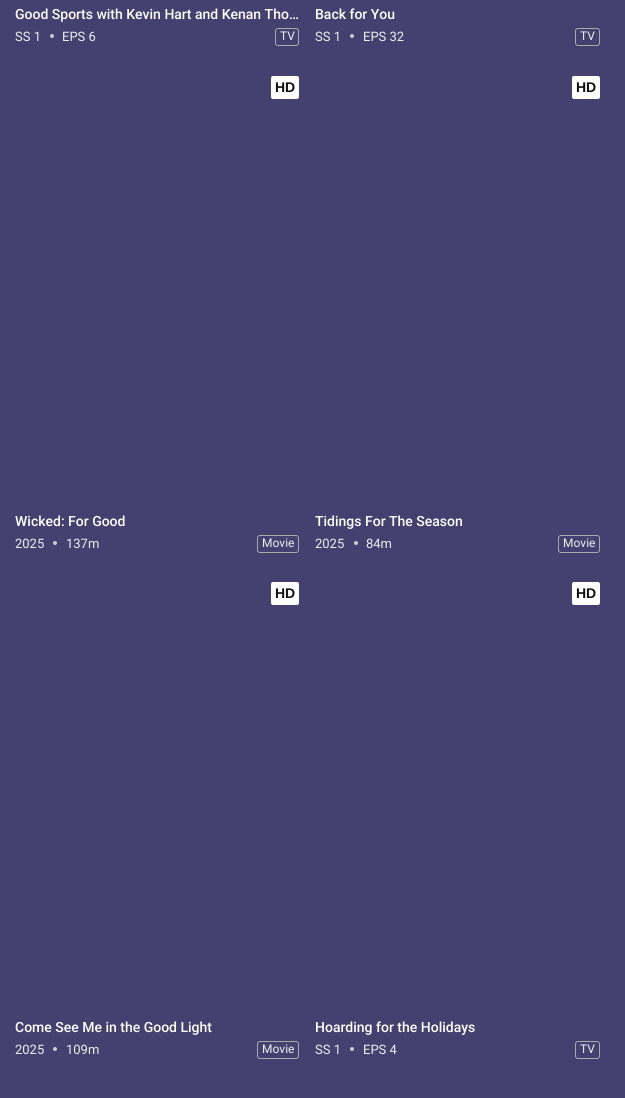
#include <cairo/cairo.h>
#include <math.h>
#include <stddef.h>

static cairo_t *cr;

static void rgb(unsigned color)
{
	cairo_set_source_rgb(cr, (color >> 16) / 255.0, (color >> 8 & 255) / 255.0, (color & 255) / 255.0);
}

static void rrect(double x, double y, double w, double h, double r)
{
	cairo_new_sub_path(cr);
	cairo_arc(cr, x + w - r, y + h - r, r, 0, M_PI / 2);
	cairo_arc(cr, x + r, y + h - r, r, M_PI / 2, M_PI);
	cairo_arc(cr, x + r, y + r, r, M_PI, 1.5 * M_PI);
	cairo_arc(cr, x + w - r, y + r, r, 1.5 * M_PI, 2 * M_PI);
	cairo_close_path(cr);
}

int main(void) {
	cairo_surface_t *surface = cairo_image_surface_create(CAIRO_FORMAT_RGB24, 625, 1098);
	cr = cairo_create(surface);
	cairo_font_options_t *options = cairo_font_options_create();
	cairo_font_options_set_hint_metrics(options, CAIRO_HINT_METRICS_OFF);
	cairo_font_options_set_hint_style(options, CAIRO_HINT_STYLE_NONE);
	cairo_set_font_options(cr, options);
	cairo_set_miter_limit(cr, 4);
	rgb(0x44406f);
	cairo_paint(cr);
	rgb(0xcccccc);
	cairo_arc(cr, 52, 36, 2, 0, 2 * M_PI);
	cairo_fill(cr);
	rrect(275.5, 28.5, 23, 17, 2.5);
	rgb(0xaaaaaa);
	cairo_set_line_width(cr, 1);
	cairo_stroke(cr);
	rgb(0xcccccc);
	cairo_arc(cr, 352, 36, 2, 0, 2 * M_PI);
	cairo_fill(cr);
	rrect(575.5, 28.5, 24, 17, 2.5);
	rgb(0xaaaaaa);
	cairo_stroke(cr);
	rgb(0xffffff);
	rrect(271, 76, 28, 23, 2);
	cairo_fill(cr);
	rgb(0xcccccc);
	cairo_arc(cr, 55, 543, 2, 0, 2 * M_PI);
	cairo_fill(cr);
	rrect(257.5, 535.5, 41, 17, 2.5);
	rgb(0xaaaaaa);
	cairo_stroke(cr);
	rgb(0xffffff);
	rrect(572, 76, 28, 23, 2);
	cairo_fill(cr);
	rgb(0xcccccc);
	cairo_arc(cr, 356, 543, 2, 0, 2 * M_PI);
	cairo_fill(cr);
	rrect(558.5, 535.5, 41, 17, 2.5);
	rgb(0xaaaaaa);
	cairo_stroke(cr);
	rgb(0xffffff);
	rrect(271, 582, 28, 23, 2);
	cairo_fill(cr);
	rgb(0xcccccc);
	cairo_arc(cr, 55, 1049, 2, 0, 2 * M_PI);
	cairo_fill(cr);
	rrect(257.5, 1041.5, 41, 17, 2.5);
	rgb(0xaaaaaa);
	cairo_stroke(cr);
	rgb(0xffffff);
	rrect(572, 582, 28, 23, 2);
	cairo_fill(cr);
	rgb(0xcccccc);
	cairo_arc(cr, 352, 1049, 2, 0, 2 * M_PI);
	cairo_fill(cr);
	rrect(575.5, 1041.5, 24, 17, 2.5);
	rgb(0xaaaaaa);
	cairo_stroke(cr);
	cairo_select_font_face(cr, "Roboto Medium", CAIRO_FONT_SLANT_NORMAL, CAIRO_FONT_WEIGHT_NORMAL);
	cairo_set_font_size(cr, 14);
	rgb(0xffffff);
	cairo_move_to(cr, 15, 19);
	cairo_show_text(cr, "Good Sports with Kevin Hart and Kenan Tho…");
	cairo_select_font_face(cr, "Roboto", CAIRO_FONT_SLANT_NORMAL, CAIRO_FONT_WEIGHT_NORMAL);
	cairo_set_font_size(cr, 13);
	rgb(0xeeeeee);
	cairo_move_to(cr, 15, 41);
	cairo_show_text(cr, "SS 1");
	cairo_move_to(cr, 62, 41);
	cairo_show_text(cr, "EPS 6");
	cairo_set_font_size(cr, 12);
	cairo_move_to(cr, 280, 40);
	cairo_show_text(cr, "TV");
	cairo_select_font_face(cr, "Roboto Medium", CAIRO_FONT_SLANT_NORMAL, CAIRO_FONT_WEIGHT_NORMAL);
	cairo_set_font_size(cr, 14);
	rgb(0xffffff);
	cairo_move_to(cr, 315, 19);
	cairo_show_text(cr, "Back for You");
	cairo_select_font_face(cr, "Roboto", CAIRO_FONT_SLANT_NORMAL, CAIRO_FONT_WEIGHT_NORMAL);
	cairo_set_font_size(cr, 13);
	rgb(0xeeeeee);
	cairo_move_to(cr, 315, 41);
	cairo_show_text(cr, "SS 1");
	cairo_move_to(cr, 363, 41);
	cairo_show_text(cr, "EPS 32");
	cairo_set_font_size(cr, 12);
	cairo_move_to(cr, 580, 40);
	cairo_show_text(cr, "TV");
	cairo_select_font_face(cr, "Liberation Sans", CAIRO_FONT_SLANT_NORMAL, CAIRO_FONT_WEIGHT_BOLD);
	cairo_set_font_size(cr, 14);
	rgb(0x111111);
	cairo_move_to(cr, 275, 92);
	cairo_show_text(cr, "HD");
	cairo_select_font_face(cr, "Roboto Medium", CAIRO_FONT_SLANT_NORMAL, CAIRO_FONT_WEIGHT_NORMAL);
	rgb(0xffffff);
	cairo_move_to(cr, 15, 526);
	cairo_show_text(cr, "Wicked: For Good");
	cairo_select_font_face(cr, "Roboto", CAIRO_FONT_SLANT_NORMAL, CAIRO_FONT_WEIGHT_NORMAL);
	cairo_set_font_size(cr, 13);
	rgb(0xeeeeee);
	cairo_move_to(cr, 15, 548);
	cairo_show_text(cr, "2025");
	cairo_move_to(cr, 66, 548);
	cairo_show_text(cr, "137m");
	cairo_set_font_size(cr, 12);
	cairo_move_to(cr, 262, 547);
	cairo_show_text(cr, "Movie");
	cairo_select_font_face(cr, "Liberation Sans", CAIRO_FONT_SLANT_NORMAL, CAIRO_FONT_WEIGHT_BOLD);
	cairo_set_font_size(cr, 14);
	rgb(0x111111);
	cairo_move_to(cr, 576, 92);
	cairo_show_text(cr, "HD");
	cairo_select_font_face(cr, "Roboto Medium", CAIRO_FONT_SLANT_NORMAL, CAIRO_FONT_WEIGHT_NORMAL);
	rgb(0xffffff);
	cairo_move_to(cr, 315, 526);
	cairo_show_text(cr, "Tidings For The Season");
	cairo_select_font_face(cr, "Roboto", CAIRO_FONT_SLANT_NORMAL, CAIRO_FONT_WEIGHT_NORMAL);
	cairo_set_font_size(cr, 13);
	rgb(0xeeeeee);
	cairo_move_to(cr, 315, 548);
	cairo_show_text(cr, "2025");
	cairo_move_to(cr, 366, 548);
	cairo_show_text(cr, "84m");
	cairo_set_font_size(cr, 12);
	cairo_move_to(cr, 563, 547);
	cairo_show_text(cr, "Movie");
	cairo_select_font_face(cr, "Liberation Sans", CAIRO_FONT_SLANT_NORMAL, CAIRO_FONT_WEIGHT_BOLD);
	cairo_set_font_size(cr, 14);
	rgb(0x111111);
	cairo_move_to(cr, 275, 598);
	cairo_show_text(cr, "HD");
	cairo_select_font_face(cr, "Roboto Medium", CAIRO_FONT_SLANT_NORMAL, CAIRO_FONT_WEIGHT_NORMAL);
	rgb(0xffffff);
	cairo_move_to(cr, 15, 1032);
	cairo_show_text(cr, "Come See Me in the Good Light");
	cairo_select_font_face(cr, "Roboto", CAIRO_FONT_SLANT_NORMAL, CAIRO_FONT_WEIGHT_NORMAL);
	cairo_set_font_size(cr, 13);
	rgb(0xeeeeee);
	cairo_move_to(cr, 15, 1054);
	cairo_show_text(cr, "2025");
	cairo_move_to(cr, 66, 1054);
	cairo_show_text(cr, "109m");
	cairo_set_font_size(cr, 12);
	cairo_move_to(cr, 262, 1053);
	cairo_show_text(cr, "Movie");
	cairo_select_font_face(cr, "Liberation Sans", CAIRO_FONT_SLANT_NORMAL, CAIRO_FONT_WEIGHT_BOLD);
	cairo_set_font_size(cr, 14);
	rgb(0x111111);
	cairo_move_to(cr, 576, 598);
	cairo_show_text(cr, "HD");
	cairo_select_font_face(cr, "Roboto Medium", CAIRO_FONT_SLANT_NORMAL, CAIRO_FONT_WEIGHT_NORMAL);
	rgb(0xffffff);
	cairo_move_to(cr, 315, 1032);
	cairo_show_text(cr, "Hoarding for the Holidays");
	cairo_select_font_face(cr, "Roboto", CAIRO_FONT_SLANT_NORMAL, CAIRO_FONT_WEIGHT_NORMAL);
	cairo_set_font_size(cr, 13);
	rgb(0xeeeeee);
	cairo_move_to(cr, 315, 1054);
	cairo_show_text(cr, "SS 1");
	cairo_move_to(cr, 363, 1054);
	cairo_show_text(cr, "EPS 4");
	cairo_set_font_size(cr, 12);
	cairo_move_to(cr, 580, 1053);
	cairo_show_text(cr, "TV");
	cairo_surface_write_to_png(surface, "page.png");
	cairo_font_options_destroy(options);
	cairo_destroy(cr);
	cairo_surface_destroy(surface);
	return 0;
}
